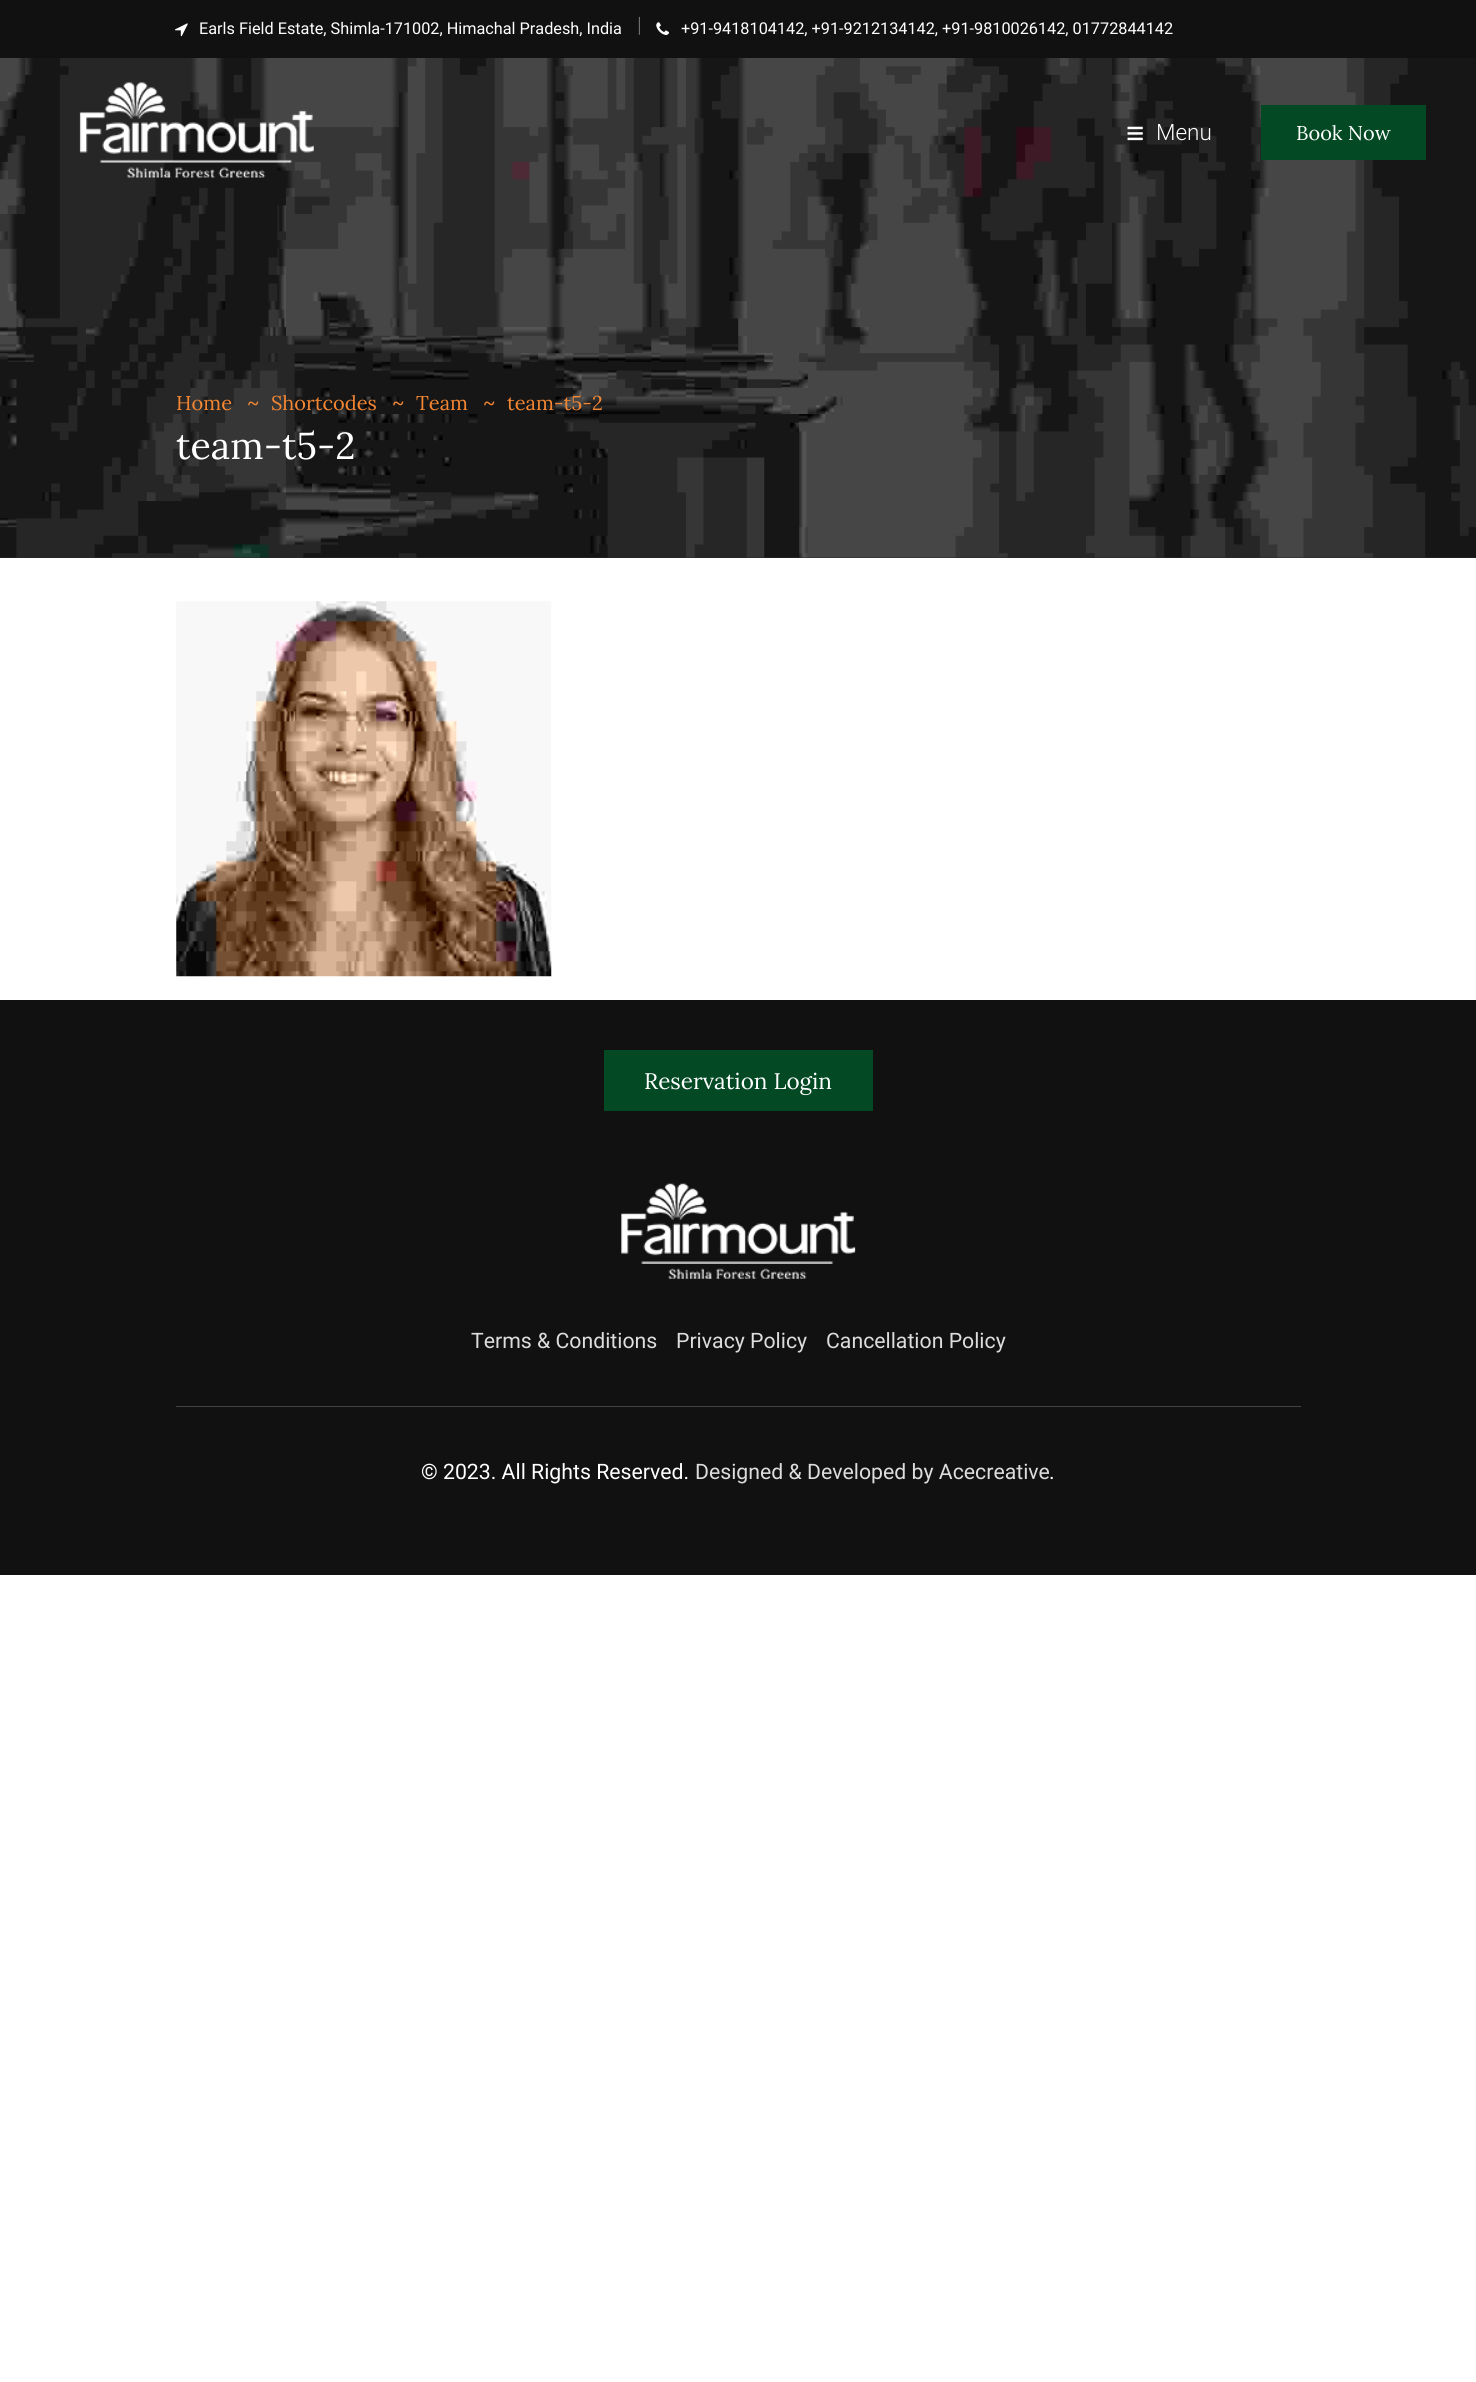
#include <cairo/cairo.h>
#include <math.h>
#include <stddef.h>

typedef struct { double x, y; const char *s; } line_t;
static cairo_t *cr;

static void rgb(unsigned color)
{
	cairo_set_source_rgb(cr, (color >> 16) / 255.0, (color >> 8 & 255) / 255.0, (color & 255) / 255.0);
}

static void image(const char *path, double x, double y, double w, double h)
{
	cairo_surface_t *image = cairo_image_surface_create_from_png(path);
	cairo_save(cr);
	cairo_set_source_surface(cr, image, x, y);
	cairo_rectangle(cr, x, y, w, h);
	cairo_fill(cr);
	cairo_restore(cr);
	cairo_surface_destroy(image);
}

int main(void) {
	cairo_surface_t *surface = cairo_image_surface_create(CAIRO_FORMAT_RGB24, 1476, 2382);
	cr = cairo_create(surface);
	cairo_font_options_t *options = cairo_font_options_create();
	cairo_font_options_set_hint_metrics(options, CAIRO_HINT_METRICS_OFF);
	cairo_font_options_set_hint_style(options, CAIRO_HINT_STYLE_NONE);
	cairo_set_font_options(cr, options);
	cairo_set_miter_limit(cr, 4);
	rgb(0xffffff);
	cairo_paint(cr);
	rgb(0x111111);
	cairo_rectangle(cr, 0, 0, 1476, 58);
	cairo_fill(cr);
	image("img/1.png", 175, 23, 13, 14);
	image("img/2.png", 656, 22, 13, 13);
	rgb(0x292929);
	cairo_rectangle(cr, 0, 557, 1476, 1);
	cairo_fill(cr);
	image("img/5.png", 0, 58, 1476, 500);
	image("img/3.png", 79, 82, 235, 96);
	image("img/4.png", 1127, 126, 16, 15);
	rgb(0x024924);
	cairo_rectangle(cr, 1261, 105, 165, 55);
	cairo_fill(cr);
	image("img/6.png", 176, 601, 376, 376);
	rgb(0x111111);
	cairo_rectangle(cr, 0, 1000, 1476, 575);
	cairo_fill(cr);
	rgb(0x024924);
	cairo_rectangle(cr, 604, 1050, 269, 61);
	cairo_fill(cr);
	image("img/7.png", 621, 1183, 235, 96);
	rgb(0x444444);
	cairo_rectangle(cr, 176, 1406, 1125, 1);
	cairo_fill(cr);
	cairo_select_font_face(cr, "Roboto", CAIRO_FONT_SLANT_NORMAL, CAIRO_FONT_WEIGHT_NORMAL);
	cairo_set_font_size(cr, 16.25);
	rgb(0xffffff);
	cairo_move_to(cr, 199, 34);
	cairo_show_text(cr, "Earls Field Estate, Shimla-171002, Himachal Pradesh, India");
	cairo_select_font_face(cr, "Roboto Light", CAIRO_FONT_SLANT_NORMAL, CAIRO_FONT_WEIGHT_NORMAL);
	cairo_set_font_size(cr, 21.25);
	rgb(0x777777);
	cairo_move_to(cr, 637, 32);
	cairo_show_text(cr, "|");
	cairo_select_font_face(cr, "Roboto", CAIRO_FONT_SLANT_NORMAL, CAIRO_FONT_WEIGHT_NORMAL);
	cairo_set_font_size(cr, 16.25);
	rgb(0xffffff);
	cairo_move_to(cr, 681, 34);
	cairo_show_text(cr, "+91-9418104142, +91-9212134142, +91-9810026142, 01772844142");
	cairo_select_font_face(cr, "Roboto Light", CAIRO_FONT_SLANT_NORMAL, CAIRO_FONT_WEIGHT_NORMAL);
	cairo_set_font_size(cr, 22.5);
	cairo_move_to(cr, 1156, 140);
	cairo_show_text(cr, "Menu");
	cairo_select_font_face(cr, "Lora", CAIRO_FONT_SLANT_NORMAL, CAIRO_FONT_WEIGHT_NORMAL);
	cairo_set_font_size(cr, 20);
	cairo_move_to(cr, 1296, 140);
	cairo_show_text(cr, "Book Now");
	rgb(0xf58733);
	cairo_move_to(cr, 176, 410);
	cairo_show_text(cr, "Home");
	cairo_select_font_face(cr, "Liberation Serif", CAIRO_FONT_SLANT_NORMAL, CAIRO_FONT_WEIGHT_BOLD);
	cairo_move_to(cr, 248, 410);
	cairo_show_text(cr, "~");
	cairo_select_font_face(cr, "Lora", CAIRO_FONT_SLANT_NORMAL, CAIRO_FONT_WEIGHT_NORMAL);
	cairo_move_to(cr, 271, 410);
	cairo_show_text(cr, "Shortcodes");
	cairo_select_font_face(cr, "Liberation Serif", CAIRO_FONT_SLANT_NORMAL, CAIRO_FONT_WEIGHT_BOLD);
	cairo_move_to(cr, 393, 410);
	cairo_show_text(cr, "~");
	cairo_select_font_face(cr, "Lora", CAIRO_FONT_SLANT_NORMAL, CAIRO_FONT_WEIGHT_NORMAL);
	cairo_move_to(cr, 416, 410);
	cairo_show_text(cr, "Team");
	cairo_select_font_face(cr, "Liberation Serif", CAIRO_FONT_SLANT_NORMAL, CAIRO_FONT_WEIGHT_BOLD);
	cairo_move_to(cr, 484, 410);
	cairo_show_text(cr, "~");
	cairo_select_font_face(cr, "Lora", CAIRO_FONT_SLANT_NORMAL, CAIRO_FONT_WEIGHT_NORMAL);
	cairo_move_to(cr, 507, 410);
	cairo_show_text(cr, "team-t5-2");
	cairo_set_font_size(cr, 37.5);
	rgb(0xffffff);
	cairo_move_to(cr, 176, 459);
	cairo_show_text(cr, "team-t5-2");
	cairo_set_font_size(cr, 22.5);
	cairo_move_to(cr, 644, 1089);
	cairo_show_text(cr, "Reservation Login");
	cairo_select_font_face(cr, "Roboto", CAIRO_FONT_SLANT_NORMAL, CAIRO_FONT_WEIGHT_NORMAL);
	cairo_set_font_size(cr, 21.25);
	rgb(0xdddddd);
	{
		static const line_t items[] = {
			{471, 1348, "Terms & Conditions"},
			{676, 1348, "Privacy Policy"},
			{826, 1348, "Cancellation Policy"},
		};
		for (size_t i = 0; i < sizeof items / sizeof *items; i++) {
			cairo_move_to(cr, items[i].x, items[i].y);
			cairo_show_text(cr, items[i].s);
		}
	}
	rgb(0xffffff);
	cairo_move_to(cr, 421, 1479);
	cairo_show_text(cr, "© 2023. All Rights Reserved.");
	rgb(0xdddddd);
	cairo_move_to(cr, 695, 1479);
	cairo_show_text(cr, "Designed & Developed by Acecreative");
	rgb(0xffffff);
	cairo_move_to(cr, 1049, 1479);
	cairo_show_text(cr, ".");
	cairo_surface_write_to_png(surface, "page.png");
	cairo_font_options_destroy(options);
	cairo_destroy(cr);
	cairo_surface_destroy(surface);
	return 0;
}
